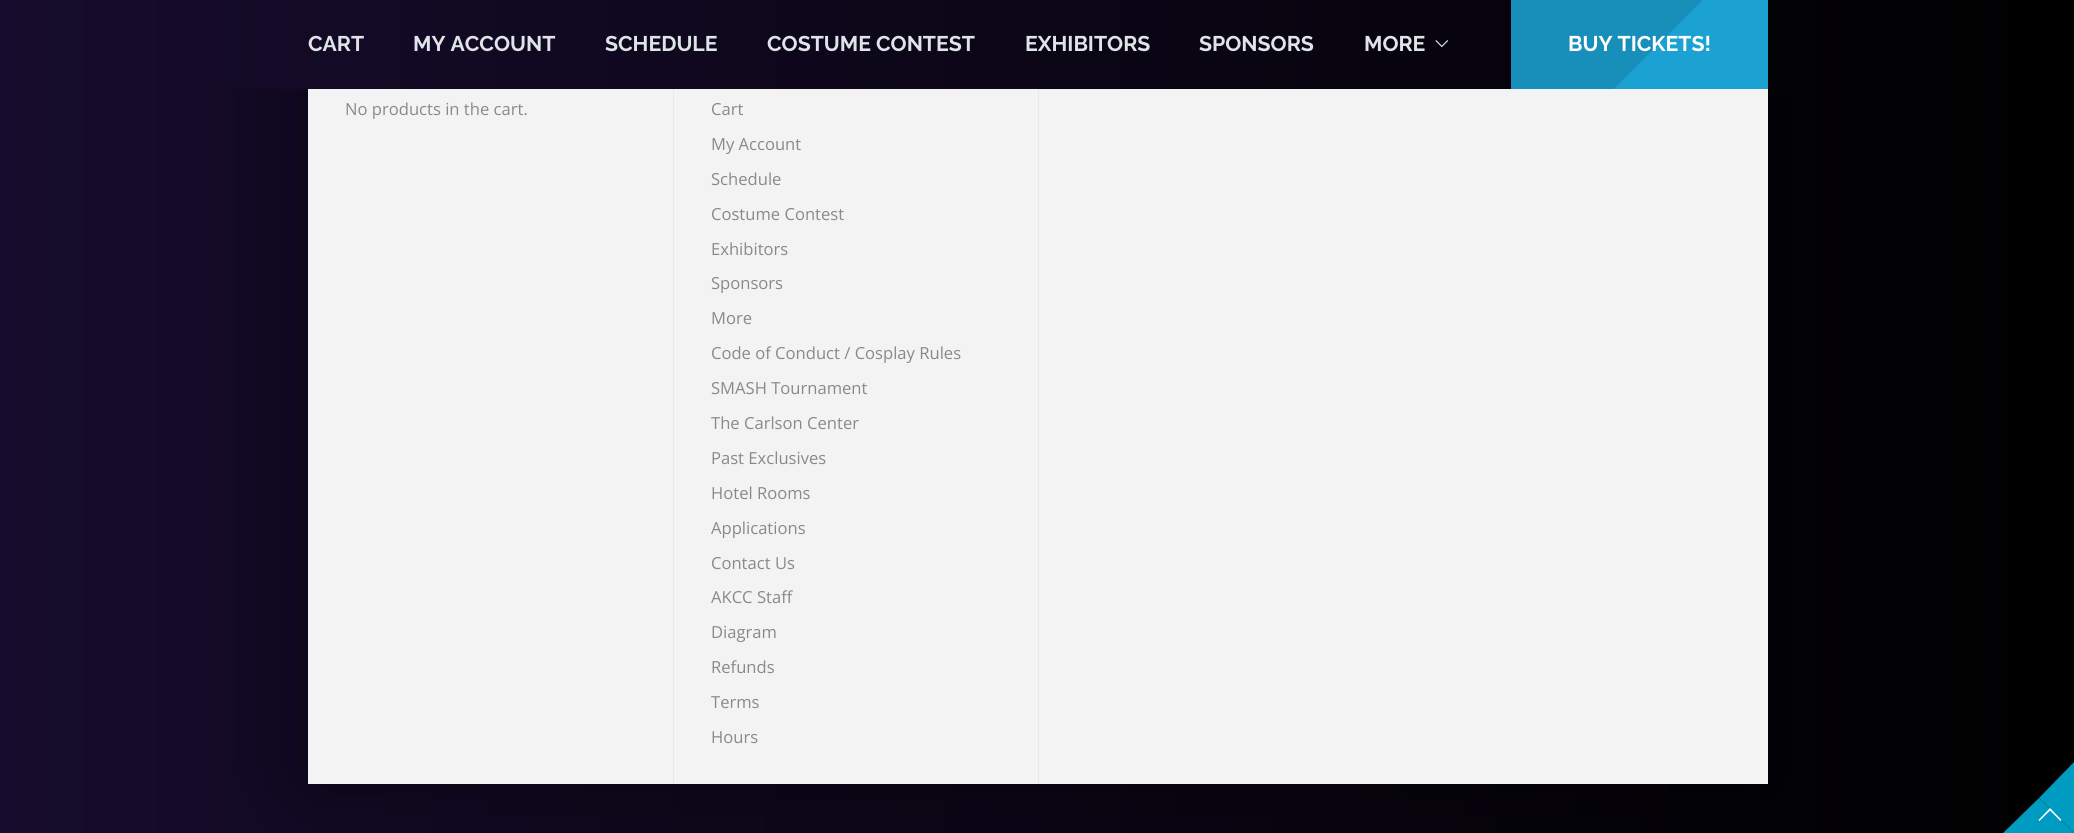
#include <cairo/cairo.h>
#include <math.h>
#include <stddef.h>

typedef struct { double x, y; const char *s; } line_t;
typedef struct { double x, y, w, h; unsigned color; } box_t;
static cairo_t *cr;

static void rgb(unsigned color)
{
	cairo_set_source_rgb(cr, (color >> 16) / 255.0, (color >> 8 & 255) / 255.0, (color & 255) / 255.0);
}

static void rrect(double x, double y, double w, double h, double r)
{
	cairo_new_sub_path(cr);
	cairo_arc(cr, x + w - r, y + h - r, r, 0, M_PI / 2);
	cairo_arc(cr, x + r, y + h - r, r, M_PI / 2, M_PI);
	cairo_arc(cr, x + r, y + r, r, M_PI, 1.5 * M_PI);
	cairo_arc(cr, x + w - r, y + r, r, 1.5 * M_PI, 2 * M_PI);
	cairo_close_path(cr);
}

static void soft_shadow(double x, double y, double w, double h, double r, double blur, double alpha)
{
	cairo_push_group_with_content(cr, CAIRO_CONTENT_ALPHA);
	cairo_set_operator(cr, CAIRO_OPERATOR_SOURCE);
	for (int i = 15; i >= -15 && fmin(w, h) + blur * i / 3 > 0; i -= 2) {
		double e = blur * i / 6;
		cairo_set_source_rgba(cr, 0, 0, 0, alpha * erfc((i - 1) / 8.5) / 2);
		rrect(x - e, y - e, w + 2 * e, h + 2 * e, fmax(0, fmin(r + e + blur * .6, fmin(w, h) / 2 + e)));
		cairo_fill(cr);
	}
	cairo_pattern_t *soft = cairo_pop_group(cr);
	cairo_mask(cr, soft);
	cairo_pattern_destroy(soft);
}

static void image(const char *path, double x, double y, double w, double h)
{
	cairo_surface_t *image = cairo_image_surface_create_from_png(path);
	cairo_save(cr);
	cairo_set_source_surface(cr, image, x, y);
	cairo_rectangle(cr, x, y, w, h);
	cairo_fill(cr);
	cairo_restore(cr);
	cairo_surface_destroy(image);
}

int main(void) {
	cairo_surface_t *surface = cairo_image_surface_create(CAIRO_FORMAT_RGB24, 2074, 833);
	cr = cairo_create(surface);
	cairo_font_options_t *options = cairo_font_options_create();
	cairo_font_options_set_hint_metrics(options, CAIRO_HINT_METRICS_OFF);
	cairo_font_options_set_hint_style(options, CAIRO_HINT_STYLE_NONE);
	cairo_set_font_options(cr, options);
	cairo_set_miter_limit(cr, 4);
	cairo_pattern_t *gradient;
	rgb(0xffffff);
	cairo_paint(cr);
	gradient = cairo_pattern_create_linear(0, -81, 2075, -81);
	cairo_pattern_add_color_stop_rgba(gradient, 0, 0.09, 0.047, 0.176, 1);
	cairo_pattern_add_color_stop_rgba(gradient, 1, 0, 0, 0, 1);
	cairo_set_source(cr, gradient);
	cairo_pattern_destroy(gradient);
	cairo_rectangle(cr, 0, 89, 2074, 744);
	cairo_fill(cr);
	rgb(0x000000);
	soft_shadow(308, -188, 1460, 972, 0, 62.5, 0.5);
	gradient = cairo_pattern_create_linear(0, 44, 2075, 44);
	cairo_pattern_add_color_stop_rgba(gradient, 0, 0.09, 0.047, 0.176, 1);
	cairo_pattern_add_color_stop_rgba(gradient, 1, 0, 0, 0, 1);
	cairo_set_source(cr, gradient);
	cairo_pattern_destroy(gradient);
	cairo_rectangle(cr, 0, 0, 2074, 89);
	cairo_fill(cr);
	image("img/1.png", 1435, 40, 14, 8);
	rgb(0x188fbb);
	cairo_rectangle(cr, 1511, 0, 192, 89);
	cairo_fill(cr);
	cairo_save(cr);
	cairo_rectangle(cr, 1614, 0, 154, 89);
	cairo_clip(cr);
	rgb(0x1ba1d2);
	cairo_new_path(cr);
	cairo_move_to(cr, 1614, 89);
	cairo_line_to(cr, 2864, -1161);
	cairo_line_to(cr, 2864, 89);
	cairo_close_path(cr);
	cairo_fill(cr);
	cairo_restore(cr);
	{
		static const box_t items[] = {
			{308, 89, 1460, 695, 0xf3f3f3},
			{673, 89, 1, 695, 0xe9e9e9},
			{1038, 89, 1, 695, 0xe9e9e9},
		};
		for (size_t i = 0; i < sizeof items / sizeof *items; i++) {
			rgb(items[i].color);
			cairo_rectangle(cr, items[i].x, items[i].y, items[i].w, items[i].h);
			cairo_fill(cr);
		}
	}
	rgb(0x009bc1);
	cairo_new_path(cr);
	cairo_move_to(cr, 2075, 761);
	cairo_line_to(cr, 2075, 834);
	cairo_line_to(cr, 2039, 798);
	cairo_close_path(cr);
	cairo_fill(cr);
	cairo_new_path(cr);
	cairo_move_to(cr, 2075, 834);
	cairo_line_to(cr, 2002, 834);
	cairo_line_to(cr, 2039, 798);
	cairo_close_path(cr);
	cairo_fill(cr);
	rgb(0xffffff);
	cairo_new_path(cr);
	cairo_move_to(cr, 2039.5, 821);
	cairo_line_to(cr, 2050, 810.5);
	cairo_line_to(cr, 2060.5, 821);
	cairo_line_to(cr, 2061.5, 820);
	cairo_line_to(cr, 2050, 808);
	cairo_line_to(cr, 2038.5, 820);
	cairo_close_path(cr);
	cairo_fill(cr);
	cairo_select_font_face(cr, "Raleway", CAIRO_FONT_SLANT_NORMAL, CAIRO_FONT_WEIGHT_BOLD);
	cairo_set_font_size(cr, 21.25);
	rgb(0xdee4e8);
	{
		static const line_t items[] = {
			{308, 51, "CART"},
			{413, 51, "MY ACCOUNT"},
			{605, 51, "SCHEDULE"},
			{767, 51, "COSTUME CONTEST"},
			{1025, 51, "EXHIBITORS"},
			{1199, 51, "SPONSORS"},
			{1364, 51, "MORE"},
		};
		for (size_t i = 0; i < sizeof items / sizeof *items; i++) {
			cairo_move_to(cr, items[i].x, items[i].y);
			cairo_show_text(cr, items[i].s);
		}
	}
	rgb(0xffffff);
	cairo_move_to(cr, 1568, 51);
	cairo_show_text(cr, "BUY TICKETS!");
	cairo_select_font_face(cr, "Open Sans", CAIRO_FONT_SLANT_NORMAL, CAIRO_FONT_WEIGHT_NORMAL);
	cairo_set_font_size(cr, 16.6);
	rgb(0x898989);
	{
		static const line_t items[] = {
			{345, 115, "No products in the cart."},
			{711, 115, "Cart"},
			{711, 150, "My Account"},
			{711, 185, "Schedule"},
			{711, 220, "Costume Contest"},
			{711, 255, "Exhibitors"},
			{711, 289, "Sponsors"},
			{711, 324, "More"},
			{711, 359, "Code of Conduct / Cosplay Rules"},
			{711, 394, "SMASH Tournament"},
			{711, 429, "The Carlson Center"},
			{711, 464, "Past Exclusives"},
			{711, 499, "Hotel Rooms"},
			{711, 534, "Applications"},
			{711, 569, "Contact Us"},
			{711, 603, "AKCC Staff"},
			{711, 638, "Diagram"},
			{711, 673, "Refunds"},
			{711, 708, "Terms"},
			{711, 743, "Hours"},
		};
		for (size_t i = 0; i < sizeof items / sizeof *items; i++) {
			cairo_move_to(cr, items[i].x, items[i].y);
			cairo_show_text(cr, items[i].s);
		}
	}
	cairo_surface_write_to_png(surface, "page.png");
	cairo_font_options_destroy(options);
	cairo_destroy(cr);
	cairo_surface_destroy(surface);
	return 0;
}
